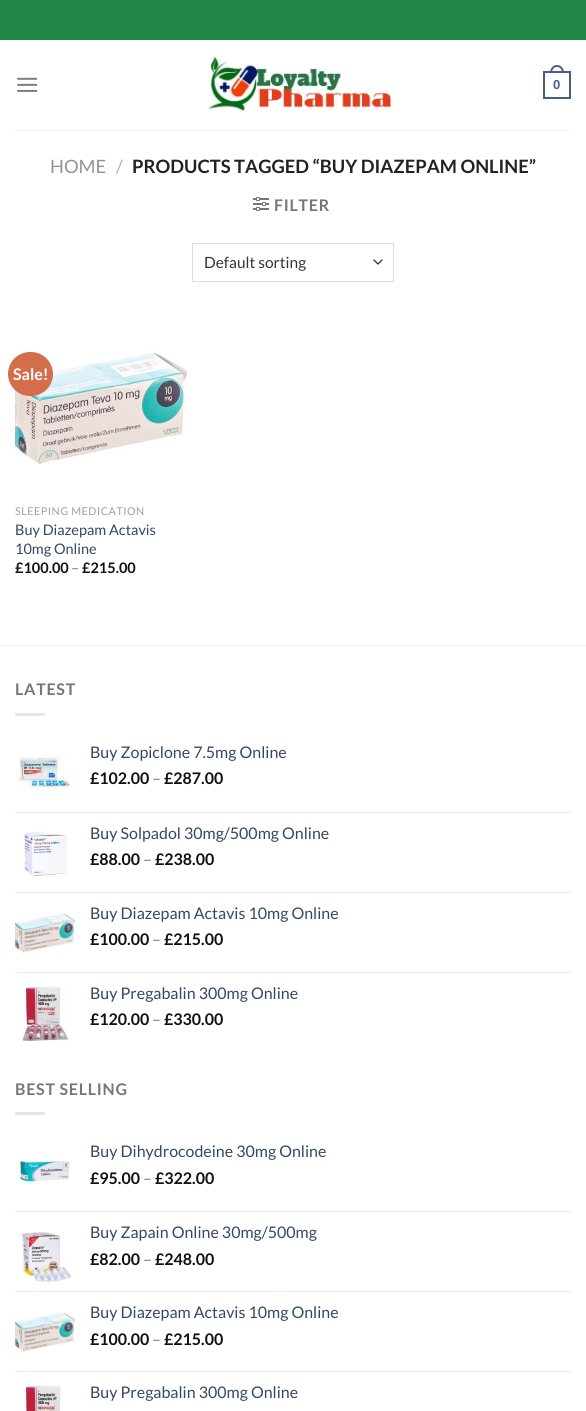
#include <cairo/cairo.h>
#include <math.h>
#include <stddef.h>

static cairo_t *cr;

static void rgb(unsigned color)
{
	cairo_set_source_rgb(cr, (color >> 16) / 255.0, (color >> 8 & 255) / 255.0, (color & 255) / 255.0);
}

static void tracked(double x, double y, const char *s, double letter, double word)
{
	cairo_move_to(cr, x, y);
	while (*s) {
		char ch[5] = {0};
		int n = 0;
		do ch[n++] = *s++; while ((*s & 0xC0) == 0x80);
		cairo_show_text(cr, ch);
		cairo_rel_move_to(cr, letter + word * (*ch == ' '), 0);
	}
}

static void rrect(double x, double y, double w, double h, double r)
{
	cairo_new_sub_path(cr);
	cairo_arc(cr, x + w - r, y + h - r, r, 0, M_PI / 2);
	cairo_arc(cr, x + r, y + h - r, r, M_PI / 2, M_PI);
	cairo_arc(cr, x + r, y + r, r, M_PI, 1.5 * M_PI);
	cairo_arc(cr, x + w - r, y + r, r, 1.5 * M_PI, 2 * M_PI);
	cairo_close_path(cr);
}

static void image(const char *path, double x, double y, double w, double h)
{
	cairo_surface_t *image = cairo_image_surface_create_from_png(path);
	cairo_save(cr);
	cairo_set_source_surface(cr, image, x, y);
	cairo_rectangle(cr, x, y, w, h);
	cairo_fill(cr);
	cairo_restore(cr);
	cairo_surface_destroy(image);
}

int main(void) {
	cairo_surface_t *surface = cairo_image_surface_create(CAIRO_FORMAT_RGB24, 586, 1411);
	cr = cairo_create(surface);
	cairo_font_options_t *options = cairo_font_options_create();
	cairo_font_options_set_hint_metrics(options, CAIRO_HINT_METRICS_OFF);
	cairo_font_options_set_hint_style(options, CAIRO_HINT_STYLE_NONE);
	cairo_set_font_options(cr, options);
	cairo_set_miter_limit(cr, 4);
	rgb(0xffffff);
	cairo_paint(cr);
	rgb(0x208746);
	cairo_rectangle(cr, 0, 0, 586, 40);
	cairo_fill(cr);
	image("img/1.png", 17, 77, 21, 15);
	image("img/2.png", 208, 55, 185, 57);
	cairo_rectangle(cr, 544, 72, 26, 26);
	rgb(0x446084);
	cairo_stroke(cr);
	cairo_set_fill_rule(cr, CAIRO_FILL_RULE_EVEN_ODD);
	cairo_new_path(cr);
	cairo_move_to(cr, 557, 65);
	cairo_curve_to(cr, 561.5, 65, 564, 69, 564, 73);
	cairo_line_to(cr, 550, 73);
	cairo_curve_to(cr, 550, 69, 552.5, 65, 557, 65);
	cairo_close_path(cr);
	cairo_move_to(cr, 557, 67);
	cairo_curve_to(cr, 560.5, 67, 562, 70, 562, 73);
	cairo_line_to(cr, 552, 73);
	cairo_curve_to(cr, 552, 70, 553.5, 67, 557, 67);
	cairo_close_path(cr);
	cairo_fill(cr);
	rgb(0xf1f1f1);
	cairo_rectangle(cr, 15, 130, 556, 1);
	cairo_fill(cr);
	image("img/3.png", 253, 197, 16, 14);
	cairo_new_path(cr);
	cairo_move_to(cr, 374, 260);
	cairo_line_to(cr, 378, 264);
	cairo_line_to(cr, 382, 260);
	rgb(0x333333);
	cairo_set_line_width(cr, 1.3);
	cairo_set_line_cap(cr, CAIRO_LINE_CAP_ROUND);
	cairo_set_line_join(cr, CAIRO_LINE_JOIN_ROUND);
	cairo_stroke(cr);
	cairo_rectangle(cr, 192.5, 243.5, 201, 38);
	rgb(0xdddddd);
	cairo_set_line_width(cr, 1);
	cairo_set_line_cap(cr, CAIRO_LINE_CAP_BUTT);
	cairo_set_line_join(cr, CAIRO_LINE_JOIN_MITER);
	cairo_stroke(cr);
	image("img/4.png", 15, 350, 172, 115);
	rgb(0xd26e4b);
	rrect(8, 352, 45, 44, 22);
	cairo_fill(cr);
	rgb(0xf2f2f2);
	cairo_rectangle(cr, 0, 645, 586, 1);
	cairo_fill(cr);
	rgb(0xe6e6e6);
	cairo_rectangle(cr, 15, 713, 30, 3);
	cairo_fill(cr);
	image("img/5.png", 18, 755, 52, 35);
	rgb(0xececec);
	cairo_rectangle(cr, 15, 812, 556, 1);
	cairo_fill(cr);
	image("img/6.png", 24, 831, 43, 46);
	cairo_rectangle(cr, 15, 892, 556, 1);
	cairo_fill(cr);
	image("img/7.png", 15, 913, 60, 40);
	cairo_rectangle(cr, 15, 972, 556, 1);
	cairo_fill(cr);
	image("img/8.png", 22, 985, 47, 58);
	rgb(0xe6e6e6);
	cairo_rectangle(cr, 15, 1112, 30, 3);
	cairo_fill(cr);
	image("img/9.png", 19, 1160, 51, 24);
	rgb(0xececec);
	cairo_rectangle(cr, 15, 1211, 556, 1);
	cairo_fill(cr);
	image("img/10.png", 22, 1232, 51, 50);
	cairo_rectangle(cr, 15, 1291, 556, 1);
	cairo_fill(cr);
	image("img/7.png", 15, 1312, 60, 40);
	cairo_rectangle(cr, 15, 1371, 556, 1);
	cairo_fill(cr);
	image("img/11.png", 24, 1384, 37, 27);
	cairo_select_font_face(cr, "Liberation Sans", CAIRO_FONT_SLANT_NORMAL, CAIRO_FONT_WEIGHT_BOLD);
	cairo_set_font_size(cr, 13);
	rgb(0x446084);
	cairo_move_to(cr, 553, 89);
	cairo_show_text(cr, "0");
	cairo_select_font_face(cr, "Lato", CAIRO_FONT_SLANT_NORMAL, CAIRO_FONT_WEIGHT_NORMAL);
	cairo_set_font_size(cr, 18.4);
	rgb(0x949494);
	cairo_move_to(cr, 50, 173);
	cairo_show_text(cr, "HOME");
	rgb(0xb2b2b2);
	cairo_move_to(cr, 116, 173);
	cairo_show_text(cr, "/");
	cairo_select_font_face(cr, "Lato", CAIRO_FONT_SLANT_NORMAL, CAIRO_FONT_WEIGHT_BOLD);
	rgb(0x222222);
	cairo_move_to(cr, 132, 173);
	cairo_show_text(cr, "PRODUCTS TAGGED “BUY DIAZEPAM ONLINE”");
	cairo_set_font_size(cr, 16);
	rgb(0x777777);
	tracked(274, 211, "FILTER", 0.75, 0);
	cairo_select_font_face(cr, "Lato", CAIRO_FONT_SLANT_NORMAL, CAIRO_FONT_WEIGHT_NORMAL);
	cairo_set_font_size(cr, 15.5);
	rgb(0x333333);
	cairo_move_to(cr, 204, 268);
	cairo_show_text(cr, "Default sorting");
	cairo_select_font_face(cr, "Lato", CAIRO_FONT_SLANT_NORMAL, CAIRO_FONT_WEIGHT_BOLD);
	cairo_set_font_size(cr, 16);
	rgb(0xffffff);
	cairo_move_to(cr, 13, 380);
	cairo_show_text(cr, "Sale!");
	cairo_select_font_face(cr, "Lato", CAIRO_FONT_SLANT_NORMAL, CAIRO_FONT_WEIGHT_NORMAL);
	cairo_set_font_size(cr, 10.75);
	rgb(0xa0a0a0);
	tracked(15, 515, "SLEEPING MEDICATION", 0.5, 0);
	cairo_set_font_size(cr, 14.5);
	rgb(0x334862);
	cairo_move_to(cr, 15, 535);
	cairo_show_text(cr, "Buy Diazepam Actavis");
	cairo_move_to(cr, 15, 554);
	cairo_show_text(cr, "10mg Online");
	cairo_select_font_face(cr, "Lato", CAIRO_FONT_SLANT_NORMAL, CAIRO_FONT_WEIGHT_BOLD);
	rgb(0x111111);
	cairo_move_to(cr, 15, 573);
	cairo_show_text(cr, "£100.00");
	cairo_select_font_face(cr, "Lato", CAIRO_FONT_SLANT_NORMAL, CAIRO_FONT_WEIGHT_NORMAL);
	rgb(0x777777);
	cairo_move_to(cr, 71, 573);
	cairo_show_text(cr, "–");
	cairo_select_font_face(cr, "Lato", CAIRO_FONT_SLANT_NORMAL, CAIRO_FONT_WEIGHT_BOLD);
	rgb(0x111111);
	cairo_move_to(cr, 82, 573);
	cairo_show_text(cr, "£215.00");
	cairo_set_font_size(cr, 16);
	rgb(0x777777);
	tracked(15, 695, "LATEST", 0.75, 0);
	cairo_select_font_face(cr, "Lato", CAIRO_FONT_SLANT_NORMAL, CAIRO_FONT_WEIGHT_NORMAL);
	rgb(0x334862);
	cairo_move_to(cr, 90, 758);
	cairo_show_text(cr, "Buy Zopiclone 7.5mg Online");
	cairo_select_font_face(cr, "Lato", CAIRO_FONT_SLANT_NORMAL, CAIRO_FONT_WEIGHT_BOLD);
	rgb(0x111111);
	cairo_move_to(cr, 90, 784);
	cairo_show_text(cr, "£102.00");
	cairo_select_font_face(cr, "Lato", CAIRO_FONT_SLANT_NORMAL, CAIRO_FONT_WEIGHT_NORMAL);
	rgb(0x777777);
	cairo_move_to(cr, 152, 784);
	cairo_show_text(cr, "–");
	cairo_select_font_face(cr, "Lato", CAIRO_FONT_SLANT_NORMAL, CAIRO_FONT_WEIGHT_BOLD);
	rgb(0x111111);
	cairo_move_to(cr, 164, 784);
	cairo_show_text(cr, "£287.00");
	cairo_select_font_face(cr, "Lato", CAIRO_FONT_SLANT_NORMAL, CAIRO_FONT_WEIGHT_NORMAL);
	rgb(0x334862);
	cairo_move_to(cr, 90, 839);
	cairo_show_text(cr, "Buy Solpadol 30mg/500mg Online");
	cairo_select_font_face(cr, "Lato", CAIRO_FONT_SLANT_NORMAL, CAIRO_FONT_WEIGHT_BOLD);
	rgb(0x111111);
	cairo_move_to(cr, 90, 865);
	cairo_show_text(cr, "£88.00");
	cairo_select_font_face(cr, "Lato", CAIRO_FONT_SLANT_NORMAL, CAIRO_FONT_WEIGHT_NORMAL);
	rgb(0x777777);
	cairo_move_to(cr, 143, 865);
	cairo_show_text(cr, "–");
	cairo_select_font_face(cr, "Lato", CAIRO_FONT_SLANT_NORMAL, CAIRO_FONT_WEIGHT_BOLD);
	rgb(0x111111);
	cairo_move_to(cr, 155, 865);
	cairo_show_text(cr, "£238.00");
	cairo_select_font_face(cr, "Lato", CAIRO_FONT_SLANT_NORMAL, CAIRO_FONT_WEIGHT_NORMAL);
	rgb(0x334862);
	cairo_move_to(cr, 90, 919);
	cairo_show_text(cr, "Buy Diazepam Actavis 10mg Online");
	cairo_select_font_face(cr, "Lato", CAIRO_FONT_SLANT_NORMAL, CAIRO_FONT_WEIGHT_BOLD);
	rgb(0x111111);
	cairo_move_to(cr, 90, 945);
	cairo_show_text(cr, "£100.00");
	cairo_select_font_face(cr, "Lato", CAIRO_FONT_SLANT_NORMAL, CAIRO_FONT_WEIGHT_NORMAL);
	rgb(0x777777);
	cairo_move_to(cr, 152, 945);
	cairo_show_text(cr, "–");
	cairo_select_font_face(cr, "Lato", CAIRO_FONT_SLANT_NORMAL, CAIRO_FONT_WEIGHT_BOLD);
	rgb(0x111111);
	cairo_move_to(cr, 164, 945);
	cairo_show_text(cr, "£215.00");
	cairo_select_font_face(cr, "Lato", CAIRO_FONT_SLANT_NORMAL, CAIRO_FONT_WEIGHT_NORMAL);
	rgb(0x334862);
	cairo_move_to(cr, 90, 999);
	cairo_show_text(cr, "Buy Pregabalin 300mg Online");
	cairo_select_font_face(cr, "Lato", CAIRO_FONT_SLANT_NORMAL, CAIRO_FONT_WEIGHT_BOLD);
	rgb(0x111111);
	cairo_move_to(cr, 90, 1025);
	cairo_show_text(cr, "£120.00");
	cairo_select_font_face(cr, "Lato", CAIRO_FONT_SLANT_NORMAL, CAIRO_FONT_WEIGHT_NORMAL);
	rgb(0x777777);
	cairo_move_to(cr, 152, 1025);
	cairo_show_text(cr, "–");
	cairo_select_font_face(cr, "Lato", CAIRO_FONT_SLANT_NORMAL, CAIRO_FONT_WEIGHT_BOLD);
	rgb(0x111111);
	cairo_move_to(cr, 164, 1025);
	cairo_show_text(cr, "£330.00");
	rgb(0x777777);
	tracked(15, 1095, "BEST SELLING", 0.75, 0);
	cairo_select_font_face(cr, "Lato", CAIRO_FONT_SLANT_NORMAL, CAIRO_FONT_WEIGHT_NORMAL);
	rgb(0x334862);
	cairo_move_to(cr, 90, 1157);
	cairo_show_text(cr, "Buy Dihydrocodeine 30mg Online");
	cairo_select_font_face(cr, "Lato", CAIRO_FONT_SLANT_NORMAL, CAIRO_FONT_WEIGHT_BOLD);
	rgb(0x111111);
	cairo_move_to(cr, 90, 1184);
	cairo_show_text(cr, "£95.00");
	cairo_select_font_face(cr, "Lato", CAIRO_FONT_SLANT_NORMAL, CAIRO_FONT_WEIGHT_NORMAL);
	rgb(0x777777);
	cairo_move_to(cr, 143, 1184);
	cairo_show_text(cr, "–");
	cairo_select_font_face(cr, "Lato", CAIRO_FONT_SLANT_NORMAL, CAIRO_FONT_WEIGHT_BOLD);
	rgb(0x111111);
	cairo_move_to(cr, 155, 1184);
	cairo_show_text(cr, "£322.00");
	cairo_select_font_face(cr, "Lato", CAIRO_FONT_SLANT_NORMAL, CAIRO_FONT_WEIGHT_NORMAL);
	rgb(0x334862);
	cairo_move_to(cr, 90, 1238);
	cairo_show_text(cr, "Buy Zapain Online 30mg/500mg");
	cairo_select_font_face(cr, "Lato", CAIRO_FONT_SLANT_NORMAL, CAIRO_FONT_WEIGHT_BOLD);
	rgb(0x111111);
	cairo_move_to(cr, 90, 1265);
	cairo_show_text(cr, "£82.00");
	cairo_select_font_face(cr, "Lato", CAIRO_FONT_SLANT_NORMAL, CAIRO_FONT_WEIGHT_NORMAL);
	rgb(0x777777);
	cairo_move_to(cr, 143, 1265);
	cairo_show_text(cr, "–");
	cairo_select_font_face(cr, "Lato", CAIRO_FONT_SLANT_NORMAL, CAIRO_FONT_WEIGHT_BOLD);
	rgb(0x111111);
	cairo_move_to(cr, 155, 1265);
	cairo_show_text(cr, "£248.00");
	cairo_select_font_face(cr, "Lato", CAIRO_FONT_SLANT_NORMAL, CAIRO_FONT_WEIGHT_NORMAL);
	rgb(0x334862);
	cairo_move_to(cr, 90, 1318);
	cairo_show_text(cr, "Buy Diazepam Actavis 10mg Online");
	cairo_select_font_face(cr, "Lato", CAIRO_FONT_SLANT_NORMAL, CAIRO_FONT_WEIGHT_BOLD);
	rgb(0x111111);
	cairo_move_to(cr, 90, 1345);
	cairo_show_text(cr, "£100.00");
	cairo_select_font_face(cr, "Lato", CAIRO_FONT_SLANT_NORMAL, CAIRO_FONT_WEIGHT_NORMAL);
	rgb(0x777777);
	cairo_move_to(cr, 152, 1345);
	cairo_show_text(cr, "–");
	cairo_select_font_face(cr, "Lato", CAIRO_FONT_SLANT_NORMAL, CAIRO_FONT_WEIGHT_BOLD);
	rgb(0x111111);
	cairo_move_to(cr, 164, 1345);
	cairo_show_text(cr, "£215.00");
	cairo_select_font_face(cr, "Lato", CAIRO_FONT_SLANT_NORMAL, CAIRO_FONT_WEIGHT_NORMAL);
	rgb(0x334862);
	cairo_move_to(cr, 90, 1398);
	cairo_show_text(cr, "Buy Pregabalin 300mg Online");
	cairo_surface_write_to_png(surface, "page.png");
	cairo_font_options_destroy(options);
	cairo_destroy(cr);
	cairo_surface_destroy(surface);
	return 0;
}
